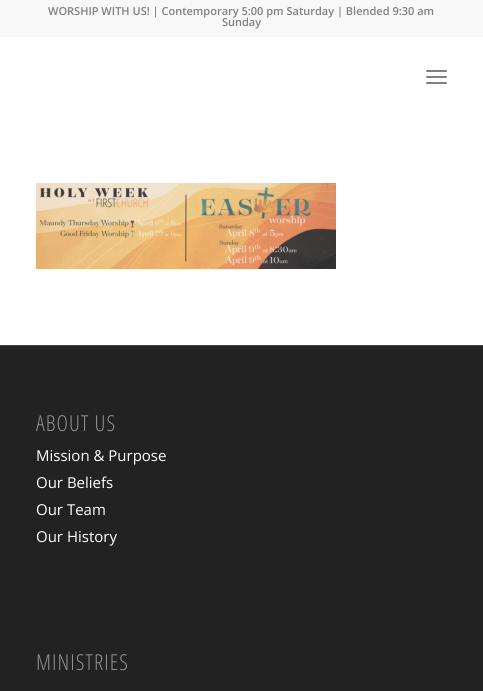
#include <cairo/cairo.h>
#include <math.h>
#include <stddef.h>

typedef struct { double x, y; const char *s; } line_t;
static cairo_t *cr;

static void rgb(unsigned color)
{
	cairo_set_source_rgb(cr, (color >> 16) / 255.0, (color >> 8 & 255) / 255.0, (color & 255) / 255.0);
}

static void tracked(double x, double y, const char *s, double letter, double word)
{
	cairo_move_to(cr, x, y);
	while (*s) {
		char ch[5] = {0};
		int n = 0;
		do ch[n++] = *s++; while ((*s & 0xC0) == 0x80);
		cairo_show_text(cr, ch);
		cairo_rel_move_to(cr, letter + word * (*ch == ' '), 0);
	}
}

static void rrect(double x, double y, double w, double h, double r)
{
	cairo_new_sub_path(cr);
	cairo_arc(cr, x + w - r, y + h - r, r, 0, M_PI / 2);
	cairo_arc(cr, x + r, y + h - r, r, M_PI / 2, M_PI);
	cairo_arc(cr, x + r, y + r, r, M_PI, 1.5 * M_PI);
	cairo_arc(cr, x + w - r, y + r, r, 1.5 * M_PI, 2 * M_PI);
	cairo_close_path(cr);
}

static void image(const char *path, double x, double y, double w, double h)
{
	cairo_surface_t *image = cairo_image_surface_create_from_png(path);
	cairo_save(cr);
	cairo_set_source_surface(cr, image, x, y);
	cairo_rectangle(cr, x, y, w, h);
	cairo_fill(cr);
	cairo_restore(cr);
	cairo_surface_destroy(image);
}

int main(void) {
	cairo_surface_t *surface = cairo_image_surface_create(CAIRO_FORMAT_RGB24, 483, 691);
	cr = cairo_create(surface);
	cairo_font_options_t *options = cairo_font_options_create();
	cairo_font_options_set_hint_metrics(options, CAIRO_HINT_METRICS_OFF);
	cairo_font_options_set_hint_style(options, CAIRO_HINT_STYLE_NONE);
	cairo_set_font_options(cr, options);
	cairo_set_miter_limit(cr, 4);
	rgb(0xffffff);
	cairo_paint(cr);
	rgb(0xf8f8f8);
	cairo_rectangle(cr, 0, 0, 483, 37);
	cairo_fill(cr);
	rgb(0x808080);
	rrect(426, 76, 21, 2, 1);
	cairo_fill(cr);
	rrect(426, 70, 21, 2, 1);
	cairo_fill(cr);
	rrect(426, 82, 21, 2, 1);
	cairo_fill(cr);
	image("img/1.png", 36, 183, 300, 86);
	rgb(0x222222);
	cairo_rectangle(cr, 0, 346, 483, 345);
	cairo_fill(cr);
	rgb(0x444444);
	cairo_rectangle(cr, 0, 345, 483, 1);
	cairo_fill(cr);
	cairo_select_font_face(cr, "Open Sans SemiBold", CAIRO_FONT_SLANT_NORMAL, CAIRO_FONT_WEIGHT_NORMAL);
	cairo_set_font_size(cr, 11);
	rgb(0x808080);
	cairo_move_to(cr, 48, 15);
	cairo_show_text(cr, "WORSHIP WITH US! | Contemporary 5:00 pm Saturday | Blended 9:30 am");
	cairo_move_to(cr, 222, 26);
	cairo_show_text(cr, "Sunday");
	cairo_select_font_face(cr, "Open Sans Condensed Light", CAIRO_FONT_SLANT_NORMAL, CAIRO_FONT_WEIGHT_NORMAL);
	cairo_set_font_size(cr, 22);
	rgb(0x919191);
	tracked(36, 431, "ABOUT US", 1, 0);
	cairo_select_font_face(cr, "Open Sans", CAIRO_FONT_SLANT_NORMAL, CAIRO_FONT_WEIGHT_NORMAL);
	cairo_set_font_size(cr, 15);
	rgb(0xffffff);
	{
		static const line_t items[] = {
			{36, 461, "Mission & Purpose"},
			{36, 488, "Our Beliefs"},
			{36, 515, "Our Team"},
			{36, 542, "Our History"},
		};
		for (size_t i = 0; i < sizeof items / sizeof *items; i++) {
			cairo_move_to(cr, items[i].x, items[i].y);
			cairo_show_text(cr, items[i].s);
		}
	}
	cairo_select_font_face(cr, "Open Sans Condensed Light", CAIRO_FONT_SLANT_NORMAL, CAIRO_FONT_WEIGHT_NORMAL);
	cairo_set_font_size(cr, 22);
	rgb(0x919191);
	tracked(36, 670, "MINISTRIES", 1, 0);
	cairo_surface_write_to_png(surface, "page.png");
	cairo_font_options_destroy(options);
	cairo_destroy(cr);
	cairo_surface_destroy(surface);
	return 0;
}
